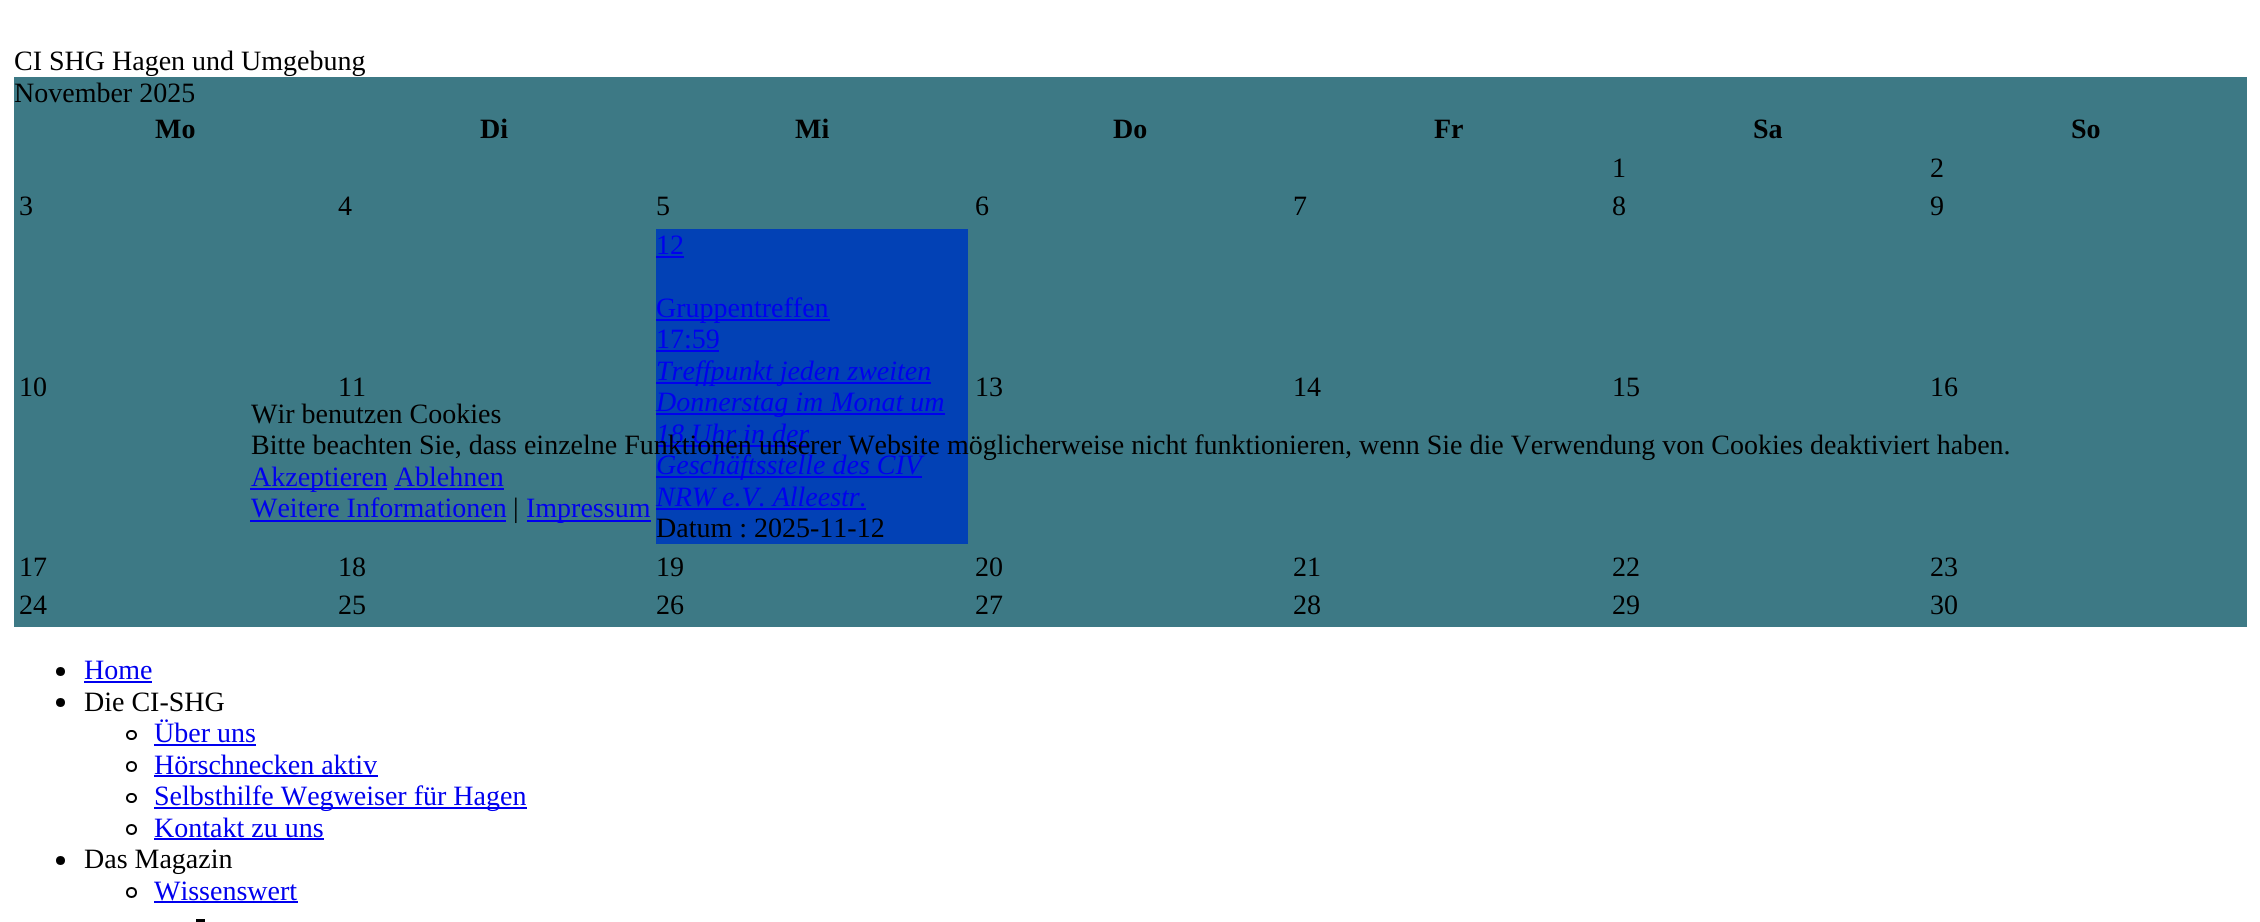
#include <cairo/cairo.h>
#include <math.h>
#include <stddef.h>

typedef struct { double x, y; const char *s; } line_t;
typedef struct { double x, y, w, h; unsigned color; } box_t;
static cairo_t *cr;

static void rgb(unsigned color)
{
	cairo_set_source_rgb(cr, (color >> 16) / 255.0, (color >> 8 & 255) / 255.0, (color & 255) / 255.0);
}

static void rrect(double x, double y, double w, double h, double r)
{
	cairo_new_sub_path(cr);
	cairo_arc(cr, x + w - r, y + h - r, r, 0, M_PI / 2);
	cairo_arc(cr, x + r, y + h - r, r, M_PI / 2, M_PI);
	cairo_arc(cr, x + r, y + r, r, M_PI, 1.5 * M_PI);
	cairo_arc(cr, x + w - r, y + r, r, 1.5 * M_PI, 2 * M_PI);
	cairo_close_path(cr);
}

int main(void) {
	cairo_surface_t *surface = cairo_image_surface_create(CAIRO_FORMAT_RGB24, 2260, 922);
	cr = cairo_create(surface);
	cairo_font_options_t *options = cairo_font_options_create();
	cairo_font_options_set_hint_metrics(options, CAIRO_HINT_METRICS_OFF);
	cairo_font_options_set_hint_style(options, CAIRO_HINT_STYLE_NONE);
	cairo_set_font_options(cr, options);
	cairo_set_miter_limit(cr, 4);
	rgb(0xffffff);
	cairo_paint(cr);
	{
		static const box_t items[] = {
			{14, 77, 2233, 550, 0x3d7985},
			{656, 229, 312, 315, 0x0241b5},
			{656, 256, 28, 2, 0x0000ee},
			{656, 319, 174, 2, 0x0000ee},
			{656, 350, 63, 2, 0x0000ee},
			{656, 382, 275, 2, 0x0000ee},
			{656, 413, 289, 2, 0x0000ee},
			{656, 445, 154, 2, 0x0000ee},
			{656, 476, 266, 2, 0x0000ee},
			{656, 508, 210, 2, 0x0000ee},
		};
		for (size_t i = 0; i < sizeof items / sizeof *items; i++) {
			rgb(items[i].color);
			cairo_rectangle(cr, items[i].x, items[i].y, items[i].w, items[i].h);
			cairo_fill(cr);
		}
	}
	rgb(0x000000);
	cairo_arc(cr, 60.5, 671.5, 4.5, 0, 2 * M_PI);
	cairo_fill(cr);
	rgb(0x0000ee);
	cairo_rectangle(cr, 84, 681, 68, 2);
	cairo_fill(cr);
	rgb(0x000000);
	cairo_arc(cr, 60.5, 702.5, 4.5, 0, 2 * M_PI);
	cairo_fill(cr);
	rrect(127, 731, 9, 8, 4);
	cairo_stroke(cr);
	rgb(0x0000ee);
	cairo_rectangle(cr, 154, 744, 102, 2);
	cairo_fill(cr);
	cairo_arc(cr, 131.5, 766.5, 4.5, 0, 2 * M_PI);
	rgb(0x000000);
	cairo_stroke(cr);
	rgb(0x0000ee);
	cairo_rectangle(cr, 154, 775, 224, 2);
	cairo_fill(cr);
	rrect(127, 794, 9, 8, 4);
	rgb(0x000000);
	cairo_stroke(cr);
	rgb(0x0000ee);
	cairo_rectangle(cr, 154, 807, 373, 2);
	cairo_fill(cr);
	cairo_arc(cr, 131.5, 829.5, 4.5, 0, 2 * M_PI);
	rgb(0x000000);
	cairo_stroke(cr);
	rgb(0x0000ee);
	cairo_rectangle(cr, 154, 838, 170, 2);
	cairo_fill(cr);
	rgb(0x000000);
	cairo_arc(cr, 60.5, 860.5, 4.5, 0, 2 * M_PI);
	cairo_fill(cr);
	cairo_arc(cr, 131.5, 892.5, 4.5, 0, 2 * M_PI);
	cairo_stroke(cr);
	{
		static const box_t items[] = {
			{154, 901, 144, 2, 0x0000ee},
			{196, 919, 9, 3, 0x000000},
			{250, 488, 137, 2, 0x0000ee},
			{394, 488, 110, 2, 0x0000ee},
			{250, 520, 256, 2, 0x0000ee},
			{527, 520, 124, 2, 0x0000ee},
		};
		for (size_t i = 0; i < sizeof items / sizeof *items; i++) {
			rgb(items[i].color);
			cairo_rectangle(cr, items[i].x, items[i].y, items[i].w, items[i].h);
			cairo_fill(cr);
		}
	}
	cairo_select_font_face(cr, "Liberation Serif", CAIRO_FONT_SLANT_NORMAL, CAIRO_FONT_WEIGHT_NORMAL);
	cairo_set_font_size(cr, 28);
	rgb(0x000000);
	cairo_move_to(cr, 14, 70);
	cairo_show_text(cr, "CI SHG Hagen und Umgebung");
	cairo_move_to(cr, 14, 102);
	cairo_show_text(cr, "November 2025");
	cairo_select_font_face(cr, "Liberation Serif", CAIRO_FONT_SLANT_NORMAL, CAIRO_FONT_WEIGHT_BOLD);
	{
		static const line_t items[] = {
			{155, 138, "Mo"},
			{480, 138, "Di"},
			{795, 138, "Mi"},
			{1113, 138, "Do"},
			{1434, 138, "Fr"},
			{1753, 138, "Sa"},
			{2071, 138, "So"},
		};
		for (size_t i = 0; i < sizeof items / sizeof *items; i++) {
			cairo_move_to(cr, items[i].x, items[i].y);
			cairo_show_text(cr, items[i].s);
		}
	}
	cairo_select_font_face(cr, "Liberation Serif", CAIRO_FONT_SLANT_NORMAL, CAIRO_FONT_WEIGHT_NORMAL);
	{
		static const line_t items[] = {
			{1612, 177, "1"},
			{1930, 177, "2"},
			{19, 215, "3"},
			{338, 215, "4"},
			{656, 215, "5"},
			{975, 215, "6"},
			{1293, 215, "7"},
			{1612, 215, "8"},
			{1930, 215, "9"},
			{19, 396, "10"},
			{338, 396, "11"},
		};
		for (size_t i = 0; i < sizeof items / sizeof *items; i++) {
			cairo_move_to(cr, items[i].x, items[i].y);
			cairo_show_text(cr, items[i].s);
		}
	}
	rgb(0x0000ee);
	{
		static const line_t items[] = {
			{656, 254, "12"},
			{656, 317, "Gruppentreffen"},
			{656, 348, "17:59"},
		};
		for (size_t i = 0; i < sizeof items / sizeof *items; i++) {
			cairo_move_to(cr, items[i].x, items[i].y);
			cairo_show_text(cr, items[i].s);
		}
	}
	cairo_select_font_face(cr, "Liberation Serif", CAIRO_FONT_SLANT_ITALIC, CAIRO_FONT_WEIGHT_NORMAL);
	{
		static const line_t items[] = {
			{656, 380, "Treffpunkt jeden zweiten"},
			{656, 411, "Donnerstag im Monat um"},
			{656, 443, "18 Uhr in der"},
			{656, 474, "Geschäftsstelle des CIV"},
			{656, 506, "NRW e.V. Alleestr."},
		};
		for (size_t i = 0; i < sizeof items / sizeof *items; i++) {
			cairo_move_to(cr, items[i].x, items[i].y);
			cairo_show_text(cr, items[i].s);
		}
	}
	cairo_select_font_face(cr, "Liberation Serif", CAIRO_FONT_SLANT_NORMAL, CAIRO_FONT_WEIGHT_NORMAL);
	rgb(0x000000);
	{
		static const line_t items[] = {
			{656, 537, "Datum : 2025-11-12"},
			{975, 396, "13"},
			{1293, 396, "14"},
			{1612, 396, "15"},
			{1930, 396, "16"},
			{19, 576, "17"},
			{338, 576, "18"},
			{656, 576, "19"},
			{975, 576, "20"},
			{1293, 576, "21"},
			{1612, 576, "22"},
			{1930, 576, "23"},
			{19, 614, "24"},
			{338, 614, "25"},
			{656, 614, "26"},
			{975, 614, "27"},
			{1293, 614, "28"},
			{1612, 614, "29"},
			{1930, 614, "30"},
		};
		for (size_t i = 0; i < sizeof items / sizeof *items; i++) {
			cairo_move_to(cr, items[i].x, items[i].y);
			cairo_show_text(cr, items[i].s);
		}
	}
	rgb(0x0000ee);
	cairo_move_to(cr, 84, 679);
	cairo_show_text(cr, "Home");
	rgb(0x000000);
	cairo_move_to(cr, 84, 711);
	cairo_show_text(cr, "Die CI-SHG");
	rgb(0x0000ee);
	{
		static const line_t items[] = {
			{154, 742, "Über uns"},
			{154, 774, "Hörschnecken aktiv"},
			{154, 805, "Selbsthilfe Wegweiser für Hagen"},
			{154, 837, "Kontakt zu uns"},
		};
		for (size_t i = 0; i < sizeof items / sizeof *items; i++) {
			cairo_move_to(cr, items[i].x, items[i].y);
			cairo_show_text(cr, items[i].s);
		}
	}
	rgb(0x000000);
	cairo_move_to(cr, 84, 868);
	cairo_show_text(cr, "Das Magazin");
	rgb(0x0000ee);
	cairo_move_to(cr, 154, 900);
	cairo_show_text(cr, "Wissenswert");
	rgb(0x000000);
	cairo_move_to(cr, 251, 423);
	cairo_show_text(cr, "Wir benutzen Cookies");
	cairo_move_to(cr, 251, 454);
	cairo_show_text(cr, "Bitte beachten Sie, dass einzelne Funktionen unserer Website möglicherweise nicht funktionieren, wenn Sie die Verwendung von Cookies deaktiviert haben.");
	rgb(0x0000ee);
	cairo_move_to(cr, 251, 486);
	cairo_show_text(cr, "Akzeptieren Ablehnen");
	cairo_move_to(cr, 251, 517);
	cairo_show_text(cr, "Weitere Informationen");
	rgb(0x000000);
	cairo_move_to(cr, 513, 517);
	cairo_show_text(cr, "|");
	rgb(0x0000ee);
	cairo_move_to(cr, 526, 517);
	cairo_show_text(cr, "Impressum");
	cairo_surface_write_to_png(surface, "page.png");
	cairo_font_options_destroy(options);
	cairo_destroy(cr);
	cairo_surface_destroy(surface);
	return 0;
}
